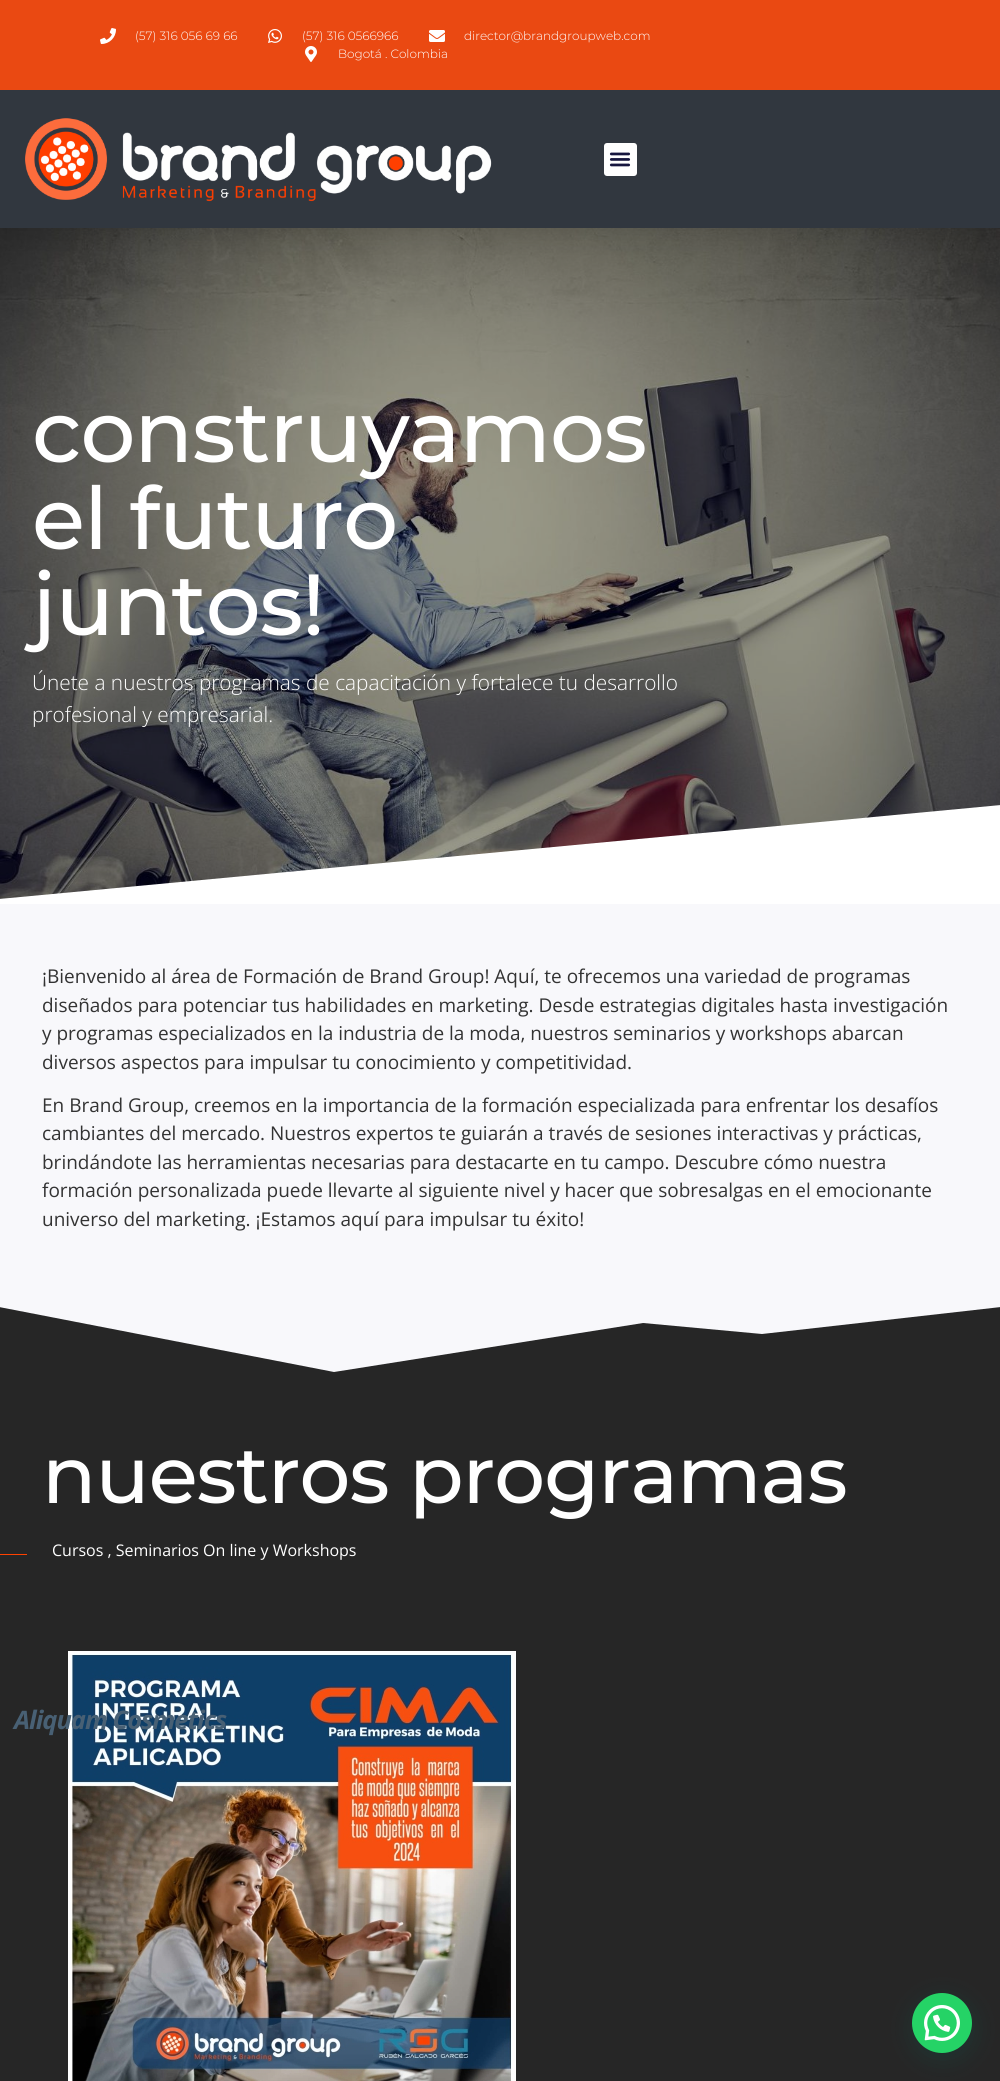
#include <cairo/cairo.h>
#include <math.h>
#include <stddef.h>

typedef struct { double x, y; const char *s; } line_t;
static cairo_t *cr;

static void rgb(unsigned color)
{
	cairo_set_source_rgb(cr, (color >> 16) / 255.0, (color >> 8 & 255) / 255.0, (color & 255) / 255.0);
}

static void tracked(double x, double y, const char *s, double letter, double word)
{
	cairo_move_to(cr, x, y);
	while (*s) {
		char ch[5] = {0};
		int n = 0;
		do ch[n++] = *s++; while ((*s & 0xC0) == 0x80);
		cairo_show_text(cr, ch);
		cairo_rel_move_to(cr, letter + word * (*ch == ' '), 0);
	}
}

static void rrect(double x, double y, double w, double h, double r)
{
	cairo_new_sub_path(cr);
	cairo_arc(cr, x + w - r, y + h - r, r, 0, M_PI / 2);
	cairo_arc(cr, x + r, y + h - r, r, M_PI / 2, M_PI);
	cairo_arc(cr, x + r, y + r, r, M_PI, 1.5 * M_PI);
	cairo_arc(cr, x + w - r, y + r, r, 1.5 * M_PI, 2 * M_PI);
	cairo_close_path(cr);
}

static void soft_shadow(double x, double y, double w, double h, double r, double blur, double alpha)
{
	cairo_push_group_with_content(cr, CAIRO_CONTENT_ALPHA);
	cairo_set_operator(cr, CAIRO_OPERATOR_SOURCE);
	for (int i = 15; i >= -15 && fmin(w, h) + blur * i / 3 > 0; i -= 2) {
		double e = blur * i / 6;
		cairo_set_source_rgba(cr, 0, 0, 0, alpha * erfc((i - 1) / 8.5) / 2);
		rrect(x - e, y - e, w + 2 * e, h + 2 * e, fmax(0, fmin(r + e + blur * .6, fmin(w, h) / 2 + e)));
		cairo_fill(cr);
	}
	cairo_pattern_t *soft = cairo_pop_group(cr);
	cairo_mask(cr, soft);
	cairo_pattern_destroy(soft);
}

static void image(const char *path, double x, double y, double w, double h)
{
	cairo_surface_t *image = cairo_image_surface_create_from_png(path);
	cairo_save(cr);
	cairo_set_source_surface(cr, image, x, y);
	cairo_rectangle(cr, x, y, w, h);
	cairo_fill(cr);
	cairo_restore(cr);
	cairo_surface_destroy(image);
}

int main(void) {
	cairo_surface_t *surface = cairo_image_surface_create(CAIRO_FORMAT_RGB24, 1000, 2081);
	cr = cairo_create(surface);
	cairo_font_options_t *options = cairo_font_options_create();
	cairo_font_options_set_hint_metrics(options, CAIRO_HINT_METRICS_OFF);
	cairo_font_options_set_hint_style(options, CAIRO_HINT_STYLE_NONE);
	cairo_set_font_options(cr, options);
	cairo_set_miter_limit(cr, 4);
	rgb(0xffffff);
	cairo_paint(cr);
	image("img/7.png", 0, 228, 1000, 671);
	rgb(0x000000);
	soft_shadow(0, 5, 1000, 228, 0, 15, 0.1);
	rgb(0xea4912);
	cairo_rectangle(cr, 0, 0, 1000, 90);
	cairo_fill(cr);
	image("img/1.png", 100, 28, 16, 16);
	image("img/2.png", 268, 29, 14, 14);
	image("img/3.png", 429, 30, 16, 12);
	image("img/4.png", 305, 46, 12, 16);
	rgb(0x31373f);
	cairo_rectangle(cr, 0, 90, 1000, 138);
	cairo_fill(cr);
	image("img/5.png", 25, 118, 467, 84);
	rgb(0xffffff);
	rrect(604, 143, 33, 33, 3);
	cairo_fill(cr);
	image("img/6.png", 609, 152, 22, 15);
	cairo_new_path(cr);
	cairo_move_to(cr, -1, 899);
	cairo_line_to(cr, -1, 905);
	cairo_line_to(cr, 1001, 905);
	cairo_line_to(cr, 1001, 805);
	cairo_close_path(cr);
	cairo_fill(cr);
	rgb(0xf8f8fb);
	cairo_rectangle(cr, 0, 904, 1000, 400);
	cairo_fill(cr);
	rgb(0x262626);
	cairo_rectangle(cr, 0, 1307, 1000, 774);
	cairo_fill(cr);
	rgb(0xf8f8fb);
	cairo_new_path(cr);
	cairo_move_to(cr, 762, 1334);
	cairo_line_to(cr, 643, 1323);
	cairo_line_to(cr, 334, 1372);
	cairo_line_to(cr, -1, 1307);
	cairo_line_to(cr, -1, 1304);
	cairo_line_to(cr, 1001, 1304);
	cairo_line_to(cr, 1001, 1307);
	cairo_fill(cr);
	rgb(0xff4200);
	cairo_rectangle(cr, 0, 1554, 27, 1);
	cairo_fill(cr);
	image("img/8.png", 68, 1651, 448, 430);
	rgb(0x075e54);
	soft_shadow(913, 1999, 60, 60, 30, 12, 0.24);
	rgb(0x25d366);
	cairo_arc(cr, 942, 2023, 30, 0, 2 * M_PI);
	cairo_fill(cr);
	image("img/9.png", 924, 2005, 36, 36);
	cairo_select_font_face(cr, "Montserrat Light", CAIRO_FONT_SLANT_NORMAL, CAIRO_FONT_WEIGHT_NORMAL);
	cairo_set_font_size(cr, 12);
	rgb(0xffffff);
	{
		static const line_t items[] = {
			{135, 40, "(57) 316 056 69 66"},
			{302, 40, "(57) 316 0566966"},
			{464, 40, "director@brandgroupweb.com"},
			{338, 58, "Bogotá . Colombia"},
		};
		for (size_t i = 0; i < sizeof items / sizeof *items; i++) {
			cairo_move_to(cr, items[i].x, items[i].y);
			cairo_show_text(cr, items[i].s);
		}
	}
	cairo_select_font_face(cr, "Montserrat Medium", CAIRO_FONT_SLANT_NORMAL, CAIRO_FONT_WEIGHT_NORMAL);
	cairo_set_font_size(cr, 86.5);
	{
		static const line_t items[] = {
			{32, 462, "construyamos"},
			{32, 549, "el futuro"},
			{32, 635, "juntos!"},
		};
		for (size_t i = 0; i < sizeof items / sizeof *items; i++) {
			tracked(items[i].x, items[i].y, items[i].s, -1, 0);
		}
	}
	cairo_select_font_face(cr, "Open Sans Light", CAIRO_FONT_SLANT_NORMAL, CAIRO_FONT_WEIGHT_NORMAL);
	cairo_set_font_size(cr, 20.8);
	cairo_move_to(cr, 32, 690);
	cairo_show_text(cr, "Únete a nuestros programas de capacitación y fortalece tu desarrollo");
	cairo_move_to(cr, 32, 722);
	cairo_show_text(cr, "profesional y empresarial.");
	cairo_select_font_face(cr, "Open Sans", CAIRO_FONT_SLANT_NORMAL, CAIRO_FONT_WEIGHT_NORMAL);
	cairo_set_font_size(cr, 19);
	rgb(0x333333);
	{
		static const line_t items[] = {
			{42, 983, "¡Bienvenido al área de Formación de Brand Group! Aquí, te ofrecemos una variedad de programas"},
			{42, 1012, "diseñados para potenciar tus habilidades en marketing. Desde estrategias digitales hasta investigación"},
			{42, 1040, "y programas especializados en la industria de la moda, nuestros seminarios y workshops abarcan"},
			{42, 1069, "diversos aspectos para impulsar tu conocimiento y competitividad."},
			{42, 1112, "En Brand Group, creemos en la importancia de la formación especializada para enfrentar los desafíos"},
			{42, 1140, "cambiantes del mercado. Nuestros expertos te guiarán a través de sesiones interactivas y prácticas,"},
			{42, 1169, "brindándote las herramientas necesarias para destacarte en tu campo. Descubre cómo nuestra"},
			{42, 1197, "formación personalizada puede llevarte al siguiente nivel y hacer que sobresalgas en el emocionante"},
			{42, 1226, "universo del marketing. ¡Estamos aquí para impulsar tu éxito!"},
		};
		for (size_t i = 0; i < sizeof items / sizeof *items; i++) {
			cairo_move_to(cr, items[i].x, items[i].y);
			cairo_show_text(cr, items[i].s);
		}
	}
	cairo_select_font_face(cr, "Montserrat Medium", CAIRO_FONT_SLANT_NORMAL, CAIRO_FONT_WEIGHT_NORMAL);
	cairo_set_font_size(cr, 80);
	rgb(0xffffff);
	tracked(42, 1503, "nuestros programas", -1, 0);
	cairo_select_font_face(cr, "Open Sans", CAIRO_FONT_SLANT_NORMAL, CAIRO_FONT_WEIGHT_NORMAL);
	cairo_set_font_size(cr, 16);
	cairo_move_to(cr, 52, 1556);
	cairo_show_text(cr, "Cursos , Seminarios On line y Workshops");
	cairo_select_font_face(cr, "Noto Sans", CAIRO_FONT_SLANT_ITALIC, CAIRO_FONT_WEIGHT_BOLD);
	cairo_set_font_size(cr, 25.5);
	rgb(0x486074);
	tracked(14, 1729, "Aliquam Cosmetics", -1, 0);
	cairo_surface_write_to_png(surface, "page.png");
	cairo_font_options_destroy(options);
	cairo_destroy(cr);
	cairo_surface_destroy(surface);
	return 0;
}
